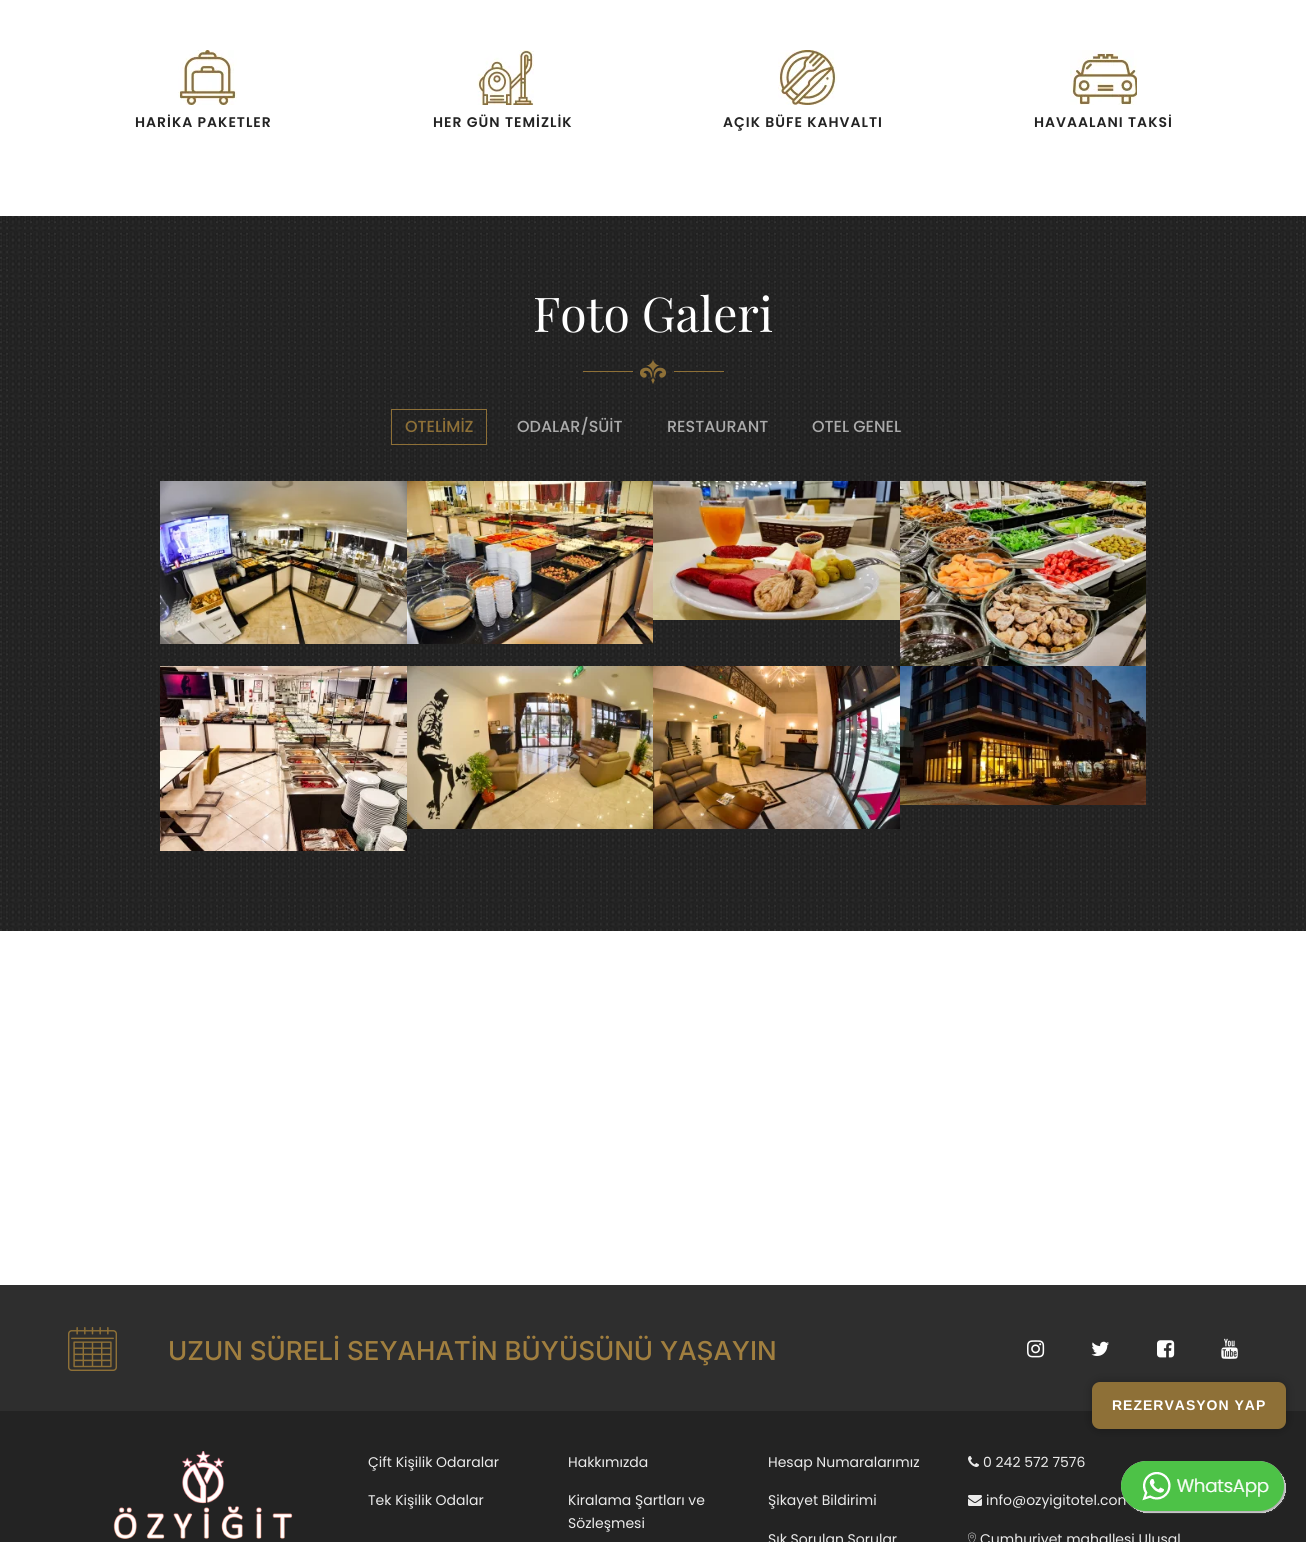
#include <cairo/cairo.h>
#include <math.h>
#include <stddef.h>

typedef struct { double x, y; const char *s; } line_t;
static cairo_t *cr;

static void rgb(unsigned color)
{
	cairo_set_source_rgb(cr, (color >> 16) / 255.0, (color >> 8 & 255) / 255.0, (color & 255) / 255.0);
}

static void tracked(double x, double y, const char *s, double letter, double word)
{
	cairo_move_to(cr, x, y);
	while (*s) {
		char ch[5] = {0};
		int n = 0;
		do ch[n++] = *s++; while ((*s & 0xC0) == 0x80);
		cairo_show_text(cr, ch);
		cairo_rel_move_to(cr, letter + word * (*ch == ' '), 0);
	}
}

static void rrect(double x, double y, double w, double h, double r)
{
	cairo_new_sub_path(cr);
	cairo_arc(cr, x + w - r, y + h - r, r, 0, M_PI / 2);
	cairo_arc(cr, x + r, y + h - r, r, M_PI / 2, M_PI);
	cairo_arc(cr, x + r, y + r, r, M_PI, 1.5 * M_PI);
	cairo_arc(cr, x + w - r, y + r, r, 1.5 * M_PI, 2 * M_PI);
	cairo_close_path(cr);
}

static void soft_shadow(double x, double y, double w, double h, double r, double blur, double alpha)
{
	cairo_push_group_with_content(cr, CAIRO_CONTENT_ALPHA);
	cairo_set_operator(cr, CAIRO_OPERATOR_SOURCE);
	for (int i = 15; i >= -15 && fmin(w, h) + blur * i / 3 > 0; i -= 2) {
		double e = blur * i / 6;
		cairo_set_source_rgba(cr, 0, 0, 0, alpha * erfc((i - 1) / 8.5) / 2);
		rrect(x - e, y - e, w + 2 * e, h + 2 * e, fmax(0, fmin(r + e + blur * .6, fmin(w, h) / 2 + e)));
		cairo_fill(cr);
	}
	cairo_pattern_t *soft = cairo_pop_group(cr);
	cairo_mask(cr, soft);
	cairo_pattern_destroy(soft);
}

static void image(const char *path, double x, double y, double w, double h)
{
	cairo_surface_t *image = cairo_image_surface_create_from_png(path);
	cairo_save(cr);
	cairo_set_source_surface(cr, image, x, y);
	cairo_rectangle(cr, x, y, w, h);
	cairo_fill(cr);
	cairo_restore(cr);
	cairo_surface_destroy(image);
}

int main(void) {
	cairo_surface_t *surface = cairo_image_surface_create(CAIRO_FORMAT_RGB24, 1306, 1542);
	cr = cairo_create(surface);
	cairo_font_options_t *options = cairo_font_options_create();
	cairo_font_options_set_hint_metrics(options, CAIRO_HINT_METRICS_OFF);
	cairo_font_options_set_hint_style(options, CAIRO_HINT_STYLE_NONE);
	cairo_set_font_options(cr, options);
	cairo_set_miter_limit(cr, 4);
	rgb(0xffffff);
	cairo_paint(cr);
	image("img/1.png", 178, 50, 59, 55);
	image("img/2.png", 477, 50, 57, 55);
	image("img/3.png", 778, 50, 59, 55);
	image("img/4.png", 1070, 50, 67, 55);
	image("img/5.png", 0, 216, 1306, 715);
	image("img/6.png", 583, 359, 141, 25);
	cairo_rectangle(cr, 391.5, 409.5, 95, 35);
	rgb(0x8e7037);
	cairo_set_line_width(cr, 1);
	cairo_stroke(cr);
	image("img/7.png", 160, 481, 247, 163);
	image("img/8.png", 407, 481, 246, 163);
	image("img/9.png", 653, 481, 247, 139);
	image("img/10.png", 900, 481, 246, 185);
	image("img/11.png", 160, 666, 247, 185);
	image("img/12.png", 407, 666, 246, 163);
	image("img/13.png", 653, 666, 247, 163);
	image("img/14.png", 900, 666, 246, 139);
	rgb(0x2e2e2e);
	cairo_rectangle(cr, 0, 1285, 1306, 126);
	cairo_fill(cr);
	image("img/15.png", 68, 1327, 49, 44);
	image("img/16.png", 1027, 1340, 18, 18);
	image("img/17.png", 1091, 1341, 18, 15);
	image("img/18.png", 1157, 1340, 18, 18);
	image("img/19.png", 1221, 1338, 17, 21);
	rgb(0x232323);
	cairo_rectangle(cr, 0, 1411, 1306, 131);
	cairo_fill(cr);
	image("img/20.png", 113, 1451, 180, 88);
	image("img/21.png", 968, 1456, 11, 11);
	image("img/22.png", 968, 1495, 14, 11);
	image("img/23.png", 968, 1532, 8, 10);
	rgb(0x000000);
	soft_shadow(1092, 1382, 194, 47, 8, 5, 0.3);
	rgb(0x8e7037);
	rrect(1092, 1382, 194, 47, 8);
	cairo_fill(cr);
	cairo_select_font_face(cr, "Poppins SemiBold", CAIRO_FONT_SLANT_NORMAL, CAIRO_FONT_WEIGHT_NORMAL);
	cairo_set_font_size(cr, 14);
	rgb(0x232323);
	{
		static const line_t items[] = {
			{135, 127, "HARİKA PAKETLER"},
			{433, 127, "HER GÜN TEMİZLİK"},
			{723, 127, "AÇIK BÜFE KAHVALTI"},
			{1034, 127, "HAVAALANI TAKSİ"},
		};
		for (size_t i = 0; i < sizeof items / sizeof *items; i++) {
			tracked(items[i].x, items[i].y, items[i].s, 1, 0);
		}
	}
	cairo_select_font_face(cr, "Playfair Display", CAIRO_FONT_SLANT_NORMAL, CAIRO_FONT_WEIGHT_NORMAL);
	cairo_set_font_size(cr, 48);
	rgb(0xffffff);
	cairo_move_to(cr, 533, 332);
	cairo_show_text(cr, "Foto Galeri");
	cairo_select_font_face(cr, "Poppins Medium", CAIRO_FONT_SLANT_NORMAL, CAIRO_FONT_WEIGHT_NORMAL);
	cairo_set_font_size(cr, 16);
	rgb(0x8e7037);
	cairo_move_to(cr, 405, 432);
	cairo_show_text(cr, "OTELİMİZ");
	rgb(0xababab);
	{
		static const line_t items[] = {
			{517, 432, "ODALAR/SÜİT"},
			{667, 432, "RESTAURANT"},
			{812, 432, "OTEL GENEL"},
		};
		for (size_t i = 0; i < sizeof items / sizeof *items; i++) {
			cairo_move_to(cr, items[i].x, items[i].y);
			cairo_show_text(cr, items[i].s);
		}
	}
	cairo_select_font_face(cr, "Inter Medium", CAIRO_FONT_SLANT_NORMAL, CAIRO_FONT_WEIGHT_NORMAL);
	cairo_set_font_size(cr, 26);
	rgb(0xa17f3f);
	cairo_move_to(cr, 168, 1360);
	cairo_show_text(cr, "UZUN SÜRELİ SEYAHATİN BÜYÜSÜNÜ YAŞAYIN");
	cairo_select_font_face(cr, "Poppins", CAIRO_FONT_SLANT_NORMAL, CAIRO_FONT_WEIGHT_NORMAL);
	cairo_set_font_size(cr, 14);
	rgb(0xebebeb);
	{
		static const line_t items[] = {
			{368, 1467, "Çift Kişilik Odaralar"},
			{368, 1505, "Tek Kişilik Odalar"},
			{568, 1467, "Hakkımızda"},
			{568, 1505, "Kiralama Şartları ve"},
			{568, 1528, "Sözleşmesi"},
			{768, 1467, "Hesap Numaralarımız"},
			{768, 1505, "Şikayet Bildirimi"},
			{768, 1544, "Sık Sorulan Sorular"},
			{983, 1467, "0 242 572 7576"},
			{986, 1505, "info@ozyigitotel.com"},
			{980, 1544, "Cumhuriyet mahallesi Ulusal"},
		};
		for (size_t i = 0; i < sizeof items / sizeof *items; i++) {
			cairo_move_to(cr, items[i].x, items[i].y);
			cairo_show_text(cr, items[i].s);
		}
	}
	cairo_select_font_face(cr, "Liberation Sans", CAIRO_FONT_SLANT_NORMAL, CAIRO_FONT_WEIGHT_BOLD);
	rgb(0xffffff);
	tracked(1112, 1410, "REZERVASYON YAP", 1, 0);
	image("img/24.png", 1121, 1461, 165, 53);
	cairo_surface_write_to_png(surface, "page.png");
	cairo_font_options_destroy(options);
	cairo_destroy(cr);
	cairo_surface_destroy(surface);
	return 0;
}
